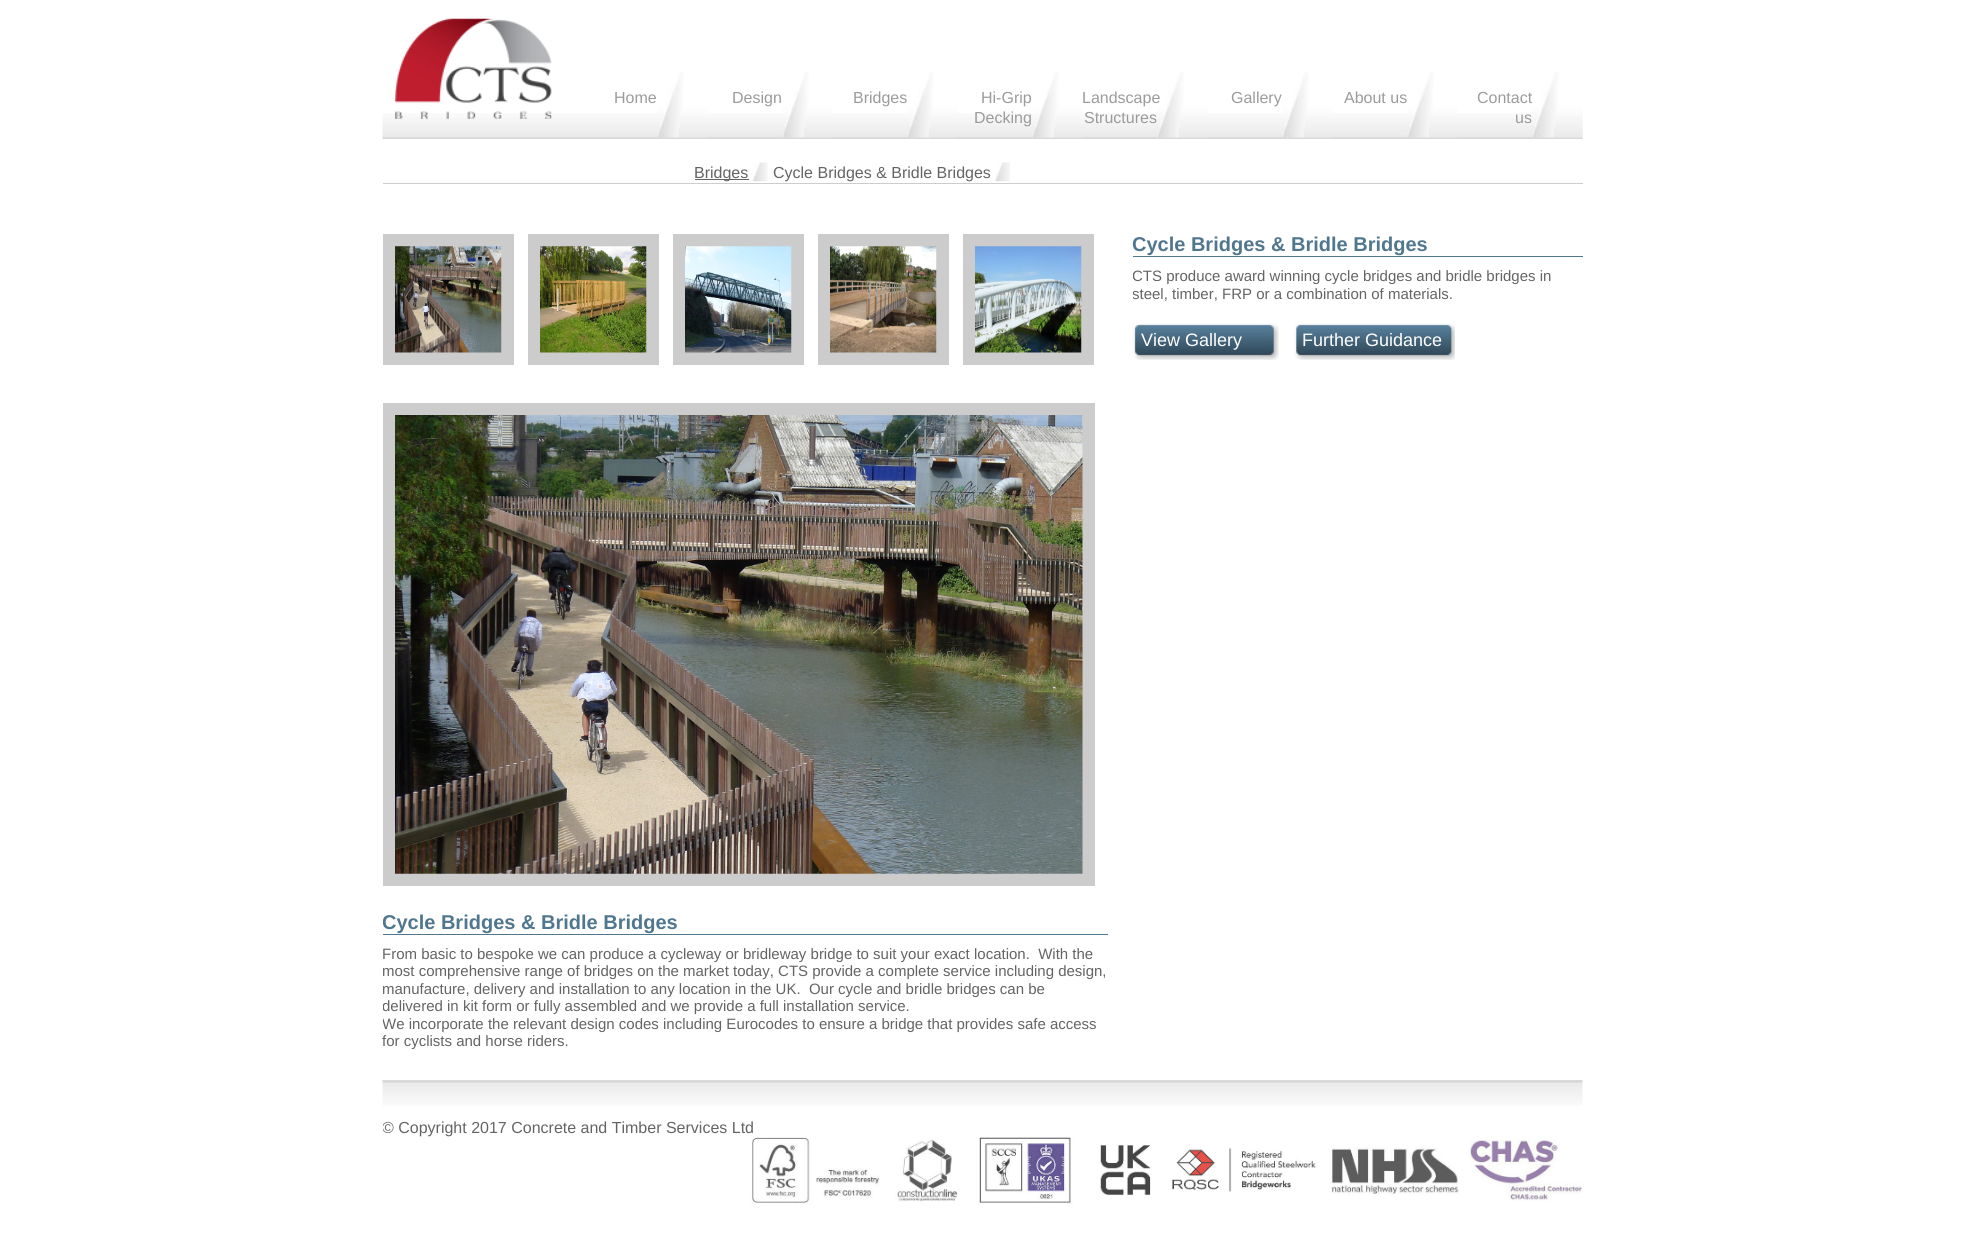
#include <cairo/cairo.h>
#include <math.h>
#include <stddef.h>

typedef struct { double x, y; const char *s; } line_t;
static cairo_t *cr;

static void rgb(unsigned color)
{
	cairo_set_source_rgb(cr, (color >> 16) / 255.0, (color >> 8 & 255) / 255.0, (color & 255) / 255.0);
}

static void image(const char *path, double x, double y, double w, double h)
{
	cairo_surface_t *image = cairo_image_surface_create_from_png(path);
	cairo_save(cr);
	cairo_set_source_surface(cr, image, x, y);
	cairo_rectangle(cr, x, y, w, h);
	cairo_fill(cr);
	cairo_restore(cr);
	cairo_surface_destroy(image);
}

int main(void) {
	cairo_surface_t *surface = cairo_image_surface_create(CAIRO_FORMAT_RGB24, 1963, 1252);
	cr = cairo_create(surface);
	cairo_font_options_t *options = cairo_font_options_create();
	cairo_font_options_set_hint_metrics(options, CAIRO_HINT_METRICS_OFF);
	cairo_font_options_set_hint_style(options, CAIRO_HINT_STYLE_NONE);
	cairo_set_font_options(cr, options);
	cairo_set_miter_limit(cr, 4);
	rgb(0xffffff);
	cairo_paint(cr);
	image("img/1.png", 382, 113, 1201, 26);
	image("img/2.png", 395, 18, 157, 101);
	image("img/3.png", 657, 72, 51, 66);
	image("img/3.png", 782, 72, 51, 66);
	image("img/3.png", 907, 72, 51, 66);
	image("img/3.png", 1032, 72, 51, 66);
	image("img/4.png", 1157, 72, 51, 66);
	image("img/3.png", 1282, 72, 51, 66);
	image("img/3.png", 1407, 72, 51, 66);
	image("img/5.png", 1532, 72, 51, 66);
	rgb(0xcccecd);
	cairo_rectangle(cr, 383, 183, 1200, 1);
	cairo_fill(cr);
	rgb(0x646464);
	cairo_rectangle(cr, 695, 179, 54, 1);
	cairo_fill(cr);
	image("img/6.png", 752, 162, 16, 20);
	image("img/7.png", 995, 162, 15, 20);
	rgb(0x51778e);
	cairo_rectangle(cr, 1133, 256, 450, 1);
	cairo_fill(cr);
	image("img/8.png", 1132, 323, 147, 37);
	image("img/9.png", 1294, 323, 161, 37);
	cairo_rectangle(cr, 389.5, 240.5, 118, 118);
	rgb(0xcccccc);
	cairo_set_line_width(cr, 13);
	cairo_stroke(cr);
	image("img/10.png", 395, 246, 107, 107);
	cairo_rectangle(cr, 534.5, 240.5, 118, 118);
	cairo_stroke(cr);
	image("img/11.png", 540, 246, 107, 107);
	cairo_rectangle(cr, 679.5, 240.5, 118, 118);
	cairo_stroke(cr);
	image("img/12.png", 685, 246, 107, 107);
	cairo_rectangle(cr, 824.5, 240.5, 118, 118);
	cairo_stroke(cr);
	image("img/13.png", 830, 246, 107, 107);
	cairo_rectangle(cr, 969.5, 240.5, 118, 118);
	cairo_stroke(cr);
	image("img/14.png", 975, 246, 107, 107);
	cairo_rectangle(cr, 389.5, 409.5, 699, 470);
	cairo_stroke(cr);
	image("img/15.png", 395, 415, 688, 459);
	rgb(0x51778e);
	cairo_rectangle(cr, 383, 934, 725, 1);
	cairo_fill(cr);
	image("img/16.png", 382, 1080, 1201, 26);
	image("img/17.png", 751, 1137, 831, 67);
	cairo_select_font_face(cr, "Liberation Sans", CAIRO_FONT_SLANT_NORMAL, CAIRO_FONT_WEIGHT_NORMAL);
	cairo_set_font_size(cr, 16);
	rgb(0x9b9b9b);
	{
		static const line_t items[] = {
			{614, 103, "Home"},
			{732, 103, "Design"},
			{853, 103, "Bridges"},
			{981, 103, "Hi-Grip"},
			{974, 123, "Decking"},
			{1082, 103, "Landscape"},
			{1084, 123, "Structures"},
			{1231, 103, "Gallery"},
			{1344, 103, "About us"},
			{1477, 103, "Contact"},
			{1515, 123, "us"},
		};
		for (size_t i = 0; i < sizeof items / sizeof *items; i++) {
			cairo_move_to(cr, items[i].x, items[i].y);
			cairo_show_text(cr, items[i].s);
		}
	}
	rgb(0x646464);
	cairo_move_to(cr, 694, 178);
	cairo_show_text(cr, "Bridges");
	cairo_move_to(cr, 773, 178);
	cairo_show_text(cr, "Cycle Bridges & Bridle Bridges");
	cairo_select_font_face(cr, "Liberation Sans", CAIRO_FONT_SLANT_NORMAL, CAIRO_FONT_WEIGHT_BOLD);
	cairo_set_font_size(cr, 20);
	rgb(0x51778e);
	cairo_move_to(cr, 1132, 251);
	cairo_show_text(cr, "Cycle Bridges & Bridle Bridges");
	cairo_save(cr);
	cairo_rectangle(cr, 1133, 268, 450, 35);
	cairo_clip(cr);
	cairo_select_font_face(cr, "Liberation Sans", CAIRO_FONT_SLANT_NORMAL, CAIRO_FONT_WEIGHT_NORMAL);
	cairo_set_font_size(cr, 15);
	rgb(0x646464);
	cairo_move_to(cr, 1132, 281);
	cairo_show_text(cr, "CTS produce award winning cycle bridges and bridle bridges in");
	cairo_move_to(cr, 1132, 299);
	cairo_show_text(cr, "steel, timber, FRP or a combination of materials.");
	cairo_restore(cr);
	cairo_select_font_face(cr, "Liberation Sans", CAIRO_FONT_SLANT_NORMAL, CAIRO_FONT_WEIGHT_NORMAL);
	cairo_set_font_size(cr, 18);
	rgb(0xffffff);
	cairo_move_to(cr, 1141, 346);
	cairo_show_text(cr, "View Gallery");
	cairo_move_to(cr, 1302, 346);
	cairo_show_text(cr, "Further Guidance");
	cairo_save(cr);
	cairo_rectangle(cr, 383, 214, 1200, 836);
	cairo_clip(cr);
	cairo_select_font_face(cr, "Liberation Sans", CAIRO_FONT_SLANT_NORMAL, CAIRO_FONT_WEIGHT_BOLD);
	cairo_set_font_size(cr, 20);
	rgb(0x51778e);
	cairo_move_to(cr, 382, 929);
	cairo_show_text(cr, "Cycle Bridges & Bridle Bridges");
	cairo_restore(cr);
	cairo_set_font_size(cr, 15);
	rgb(0x646464);
	cairo_move_to(cr, 382, 959);
	cairo_show_text(cr, "From basic to bespoke we can produce a cycleway or bridleway bridge to suit your exact location.  With the");
	cairo_save(cr);
	cairo_rectangle(cr, 383, 214, 1200, 836);
	cairo_clip(cr);
	{
		static const line_t items[] = {
			{382, 976, "most comprehensive range of bridges on the market today, CTS provide a complete service including design,"},
			{382, 994, "manufacture, delivery and installation to any location in the UK.  Our cycle and bridle bridges can be"},
			{382, 1011, "delivered in kit form or fully assembled and we provide a full installation service."},
			{382, 1029, "We incorporate the relevant design codes including Eurocodes to ensure a bridge that provides safe access"},
		};
		for (size_t i = 0; i < sizeof items / sizeof *items; i++) {
			cairo_move_to(cr, items[i].x, items[i].y);
			cairo_show_text(cr, items[i].s);
		}
	}
	cairo_restore(cr);
	cairo_move_to(cr, 382, 1046);
	cairo_show_text(cr, "for cyclists and horse riders.");
	cairo_save(cr);
	cairo_rectangle(cr, 383, 1080, 1200, 128);
	cairo_clip(cr);
	cairo_set_font_size(cr, 16);
	cairo_move_to(cr, 382, 1133);
	cairo_show_text(cr, "© Copyright 2017 Concrete and Timber Services Ltd");
	cairo_restore(cr);
	cairo_surface_write_to_png(surface, "page.png");
	cairo_font_options_destroy(options);
	cairo_destroy(cr);
	cairo_surface_destroy(surface);
	return 0;
}
